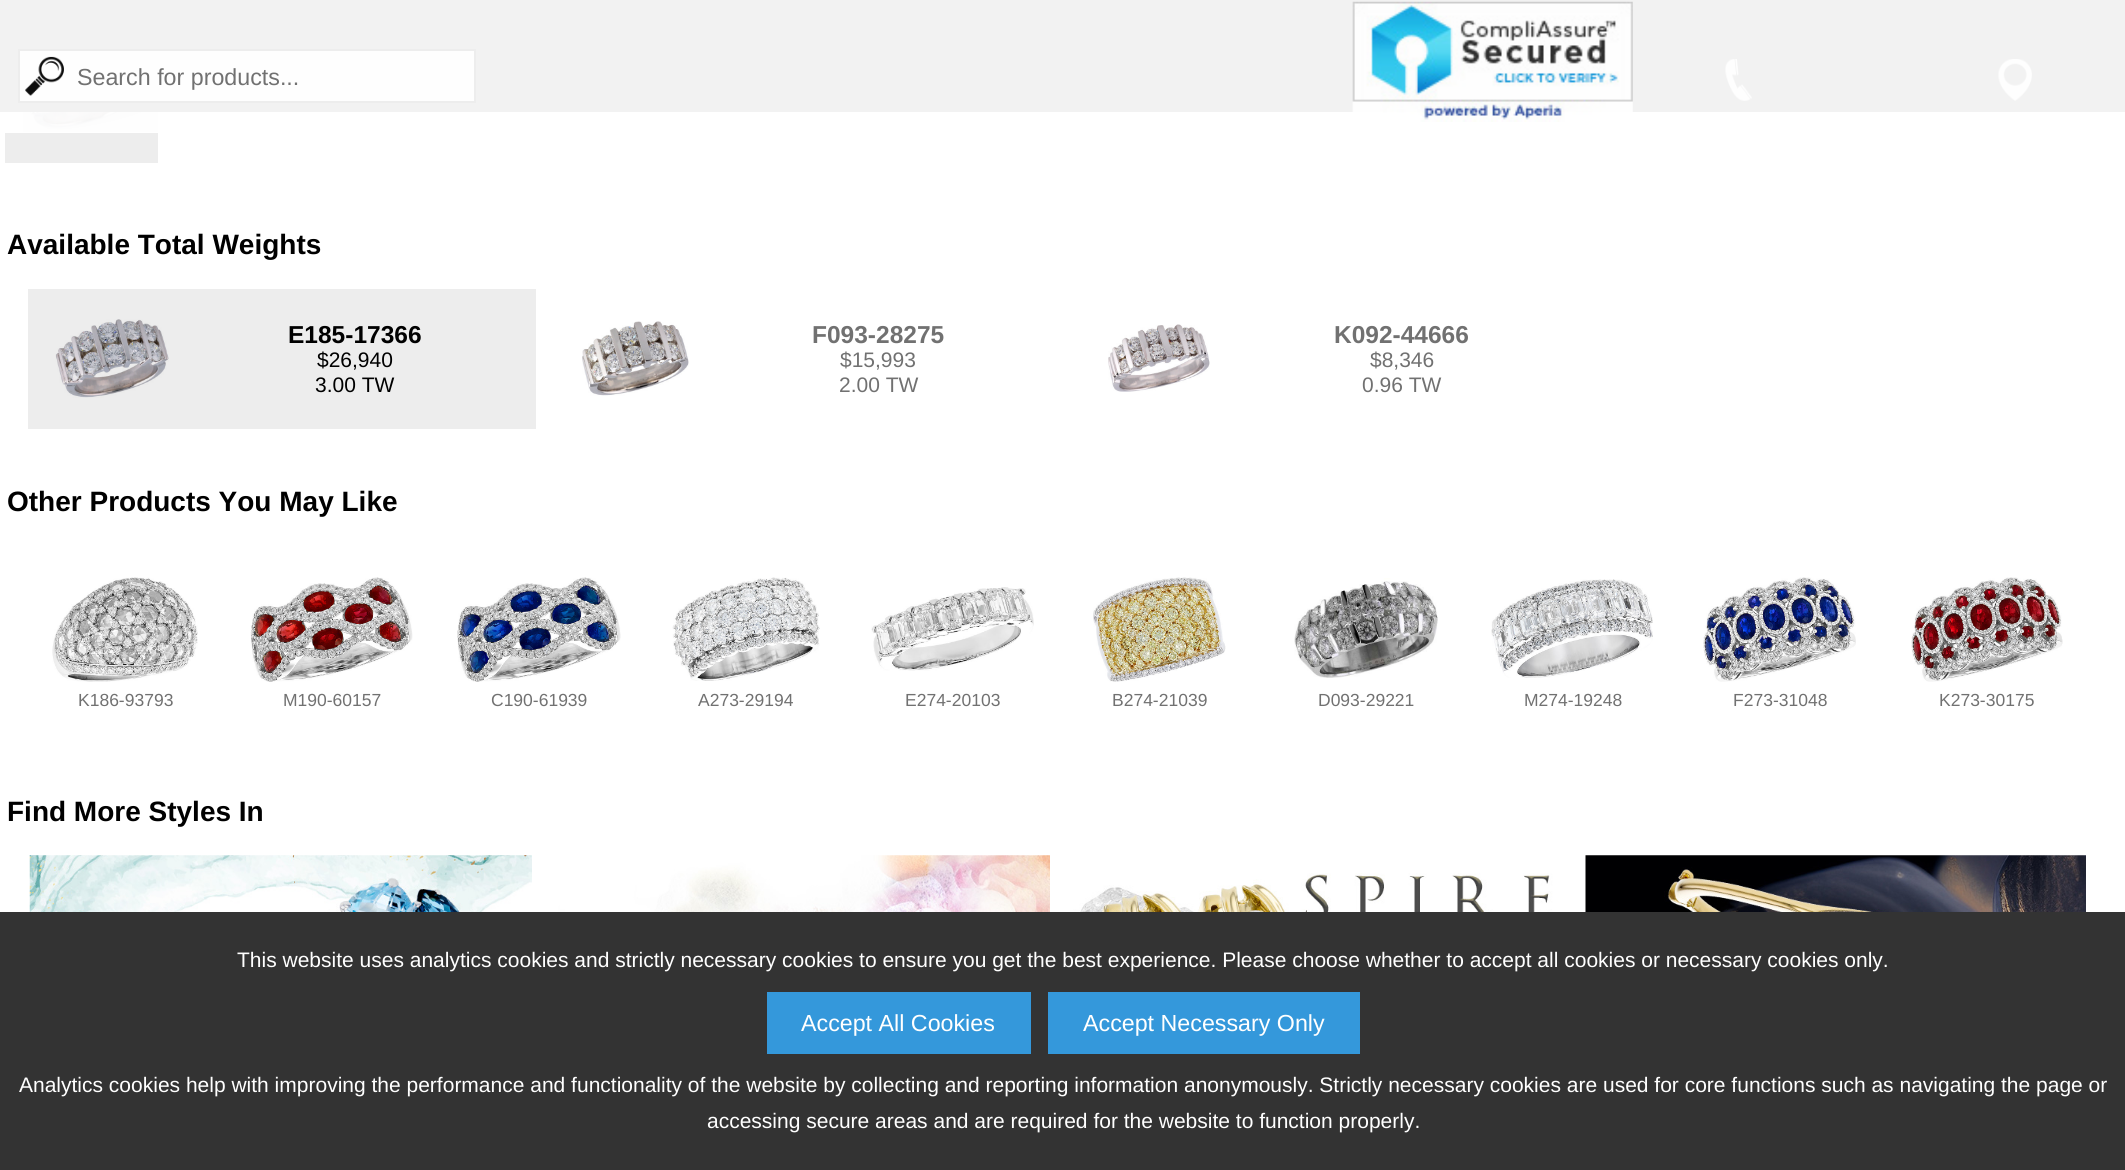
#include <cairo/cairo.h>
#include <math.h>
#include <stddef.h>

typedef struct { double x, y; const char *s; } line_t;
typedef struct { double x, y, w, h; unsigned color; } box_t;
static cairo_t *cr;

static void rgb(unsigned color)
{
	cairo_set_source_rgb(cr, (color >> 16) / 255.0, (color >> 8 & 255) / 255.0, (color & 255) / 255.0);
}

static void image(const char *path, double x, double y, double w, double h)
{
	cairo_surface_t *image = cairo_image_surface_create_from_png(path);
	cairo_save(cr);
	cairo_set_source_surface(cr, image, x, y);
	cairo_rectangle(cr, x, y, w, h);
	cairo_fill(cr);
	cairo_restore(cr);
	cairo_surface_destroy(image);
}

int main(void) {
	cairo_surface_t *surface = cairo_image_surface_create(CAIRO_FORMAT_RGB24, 2125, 1170);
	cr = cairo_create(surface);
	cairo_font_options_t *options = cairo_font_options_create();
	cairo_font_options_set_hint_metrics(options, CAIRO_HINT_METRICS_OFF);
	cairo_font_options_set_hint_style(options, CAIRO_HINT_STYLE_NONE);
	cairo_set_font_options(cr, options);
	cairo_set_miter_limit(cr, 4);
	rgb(0xffffff);
	cairo_paint(cr);
	rgb(0xededed);
	cairo_rectangle(cr, 28, 289, 508, 140);
	cairo_fill(cr);
	cairo_rectangle(cr, 5, 133, 153, 30);
	cairo_fill(cr);
	image("img/5.png", 23, 46, 135, 86);
	cairo_set_source_rgba(cr, 0.949, 0.949, 0.949, 0.95);
	cairo_rectangle(cr, 0, 0, 2125, 112);
	cairo_fill(cr);
	rgb(0xfefefe);
	cairo_rectangle(cr, 19, 50, 456, 52);
	cairo_fill_preserve(cr);
	rgb(0xededed);
	cairo_stroke(cr);
	image("img/1.png", 25, 56, 39, 40);
	image("img/2.png", 1352, 1, 281, 121);
	image("img/3.png", 1725, 59, 27, 42);
	image("img/4.png", 1998, 59, 34, 42);
	image("img/6.png", 55, 319, 114, 79);
	image("img/7.png", 582, 321, 107, 75);
	image("img/8.png", 1108, 324, 102, 68);
	image("img/9.png", 52, 577, 146, 105);
	image("img/10.png", 250, 577, 163, 105);
	image("img/11.png", 457, 577, 164, 105);
	image("img/12.png", 672, 577, 148, 104);
	image("img/13.png", 871, 587, 163, 84);
	image("img/14.png", 1093, 577, 133, 105);
	image("img/15.png", 1294, 578, 144, 100);
	image("img/16.png", 1491, 579, 162, 99);
	image("img/17.png", 1703, 577, 153, 105);
	image("img/18.png", 1911, 577, 152, 105);
	image("img/19.png", 29, 855, 503, 57);
	image("img/20.png", 558, 855, 492, 57);
	image("img/21.png", 1067, 873, 501, 39);
	image("img/22.png", 1585, 855, 501, 57);
	{
		static const box_t items[] = {
			{0, 912, 2125, 258, 0x333333},
			{767, 992, 264, 62, 0x3498db},
			{1048, 992, 312, 62, 0x3498db},
		};
		for (size_t i = 0; i < sizeof items / sizeof *items; i++) {
			rgb(items[i].color);
			cairo_rectangle(cr, items[i].x, items[i].y, items[i].w, items[i].h);
			cairo_fill(cr);
		}
	}
	cairo_select_font_face(cr, "Liberation Sans", CAIRO_FONT_SLANT_NORMAL, CAIRO_FONT_WEIGHT_NORMAL);
	cairo_set_font_size(cr, 23.25);
	rgb(0x717171);
	cairo_move_to(cr, 77, 85);
	cairo_show_text(cr, "Search for products...");
	cairo_select_font_face(cr, "Liberation Sans", CAIRO_FONT_SLANT_NORMAL, CAIRO_FONT_WEIGHT_BOLD);
	cairo_set_font_size(cr, 28);
	rgb(0x000000);
	cairo_move_to(cr, 7, 254);
	cairo_show_text(cr, "Available Total Weights");
	cairo_set_font_size(cr, 24.5);
	cairo_move_to(cr, 288, 343);
	cairo_show_text(cr, "E185-17366");
	cairo_select_font_face(cr, "Liberation Sans", CAIRO_FONT_SLANT_NORMAL, CAIRO_FONT_WEIGHT_NORMAL);
	cairo_set_font_size(cr, 21);
	cairo_move_to(cr, 317, 367);
	cairo_show_text(cr, "$26,940");
	cairo_move_to(cr, 315, 392);
	cairo_show_text(cr, "3.00 TW");
	cairo_select_font_face(cr, "Liberation Sans", CAIRO_FONT_SLANT_NORMAL, CAIRO_FONT_WEIGHT_BOLD);
	cairo_set_font_size(cr, 24.5);
	rgb(0x717171);
	cairo_move_to(cr, 812, 343);
	cairo_show_text(cr, "F093-28275");
	cairo_select_font_face(cr, "Liberation Sans", CAIRO_FONT_SLANT_NORMAL, CAIRO_FONT_WEIGHT_NORMAL);
	cairo_set_font_size(cr, 21);
	cairo_move_to(cr, 840, 367);
	cairo_show_text(cr, "$15,993");
	cairo_move_to(cr, 839, 392);
	cairo_show_text(cr, "2.00 TW");
	cairo_select_font_face(cr, "Liberation Sans", CAIRO_FONT_SLANT_NORMAL, CAIRO_FONT_WEIGHT_BOLD);
	cairo_set_font_size(cr, 24.5);
	cairo_move_to(cr, 1334, 343);
	cairo_show_text(cr, "K092-44666");
	cairo_select_font_face(cr, "Liberation Sans", CAIRO_FONT_SLANT_NORMAL, CAIRO_FONT_WEIGHT_NORMAL);
	cairo_set_font_size(cr, 21);
	cairo_move_to(cr, 1370, 367);
	cairo_show_text(cr, "$8,346");
	cairo_move_to(cr, 1362, 392);
	cairo_show_text(cr, "0.96 TW");
	cairo_select_font_face(cr, "Liberation Sans", CAIRO_FONT_SLANT_NORMAL, CAIRO_FONT_WEIGHT_BOLD);
	cairo_set_font_size(cr, 28);
	rgb(0x000000);
	cairo_move_to(cr, 7, 511);
	cairo_show_text(cr, "Other Products You May Like");
	cairo_select_font_face(cr, "Liberation Sans", CAIRO_FONT_SLANT_NORMAL, CAIRO_FONT_WEIGHT_NORMAL);
	cairo_set_font_size(cr, 17.5);
	rgb(0x717171);
	{
		static const line_t items[] = {
			{78, 706, "K186-93793"},
			{283, 706, "M190-60157"},
			{491, 706, "C190-61939"},
			{698, 706, "A273-29194"},
			{905, 706, "E274-20103"},
			{1112, 706, "B274-21039"},
			{1318, 706, "D093-29221"},
			{1524, 706, "M274-19248"},
			{1733, 706, "F273-31048"},
			{1939, 706, "K273-30175"},
		};
		for (size_t i = 0; i < sizeof items / sizeof *items; i++) {
			cairo_move_to(cr, items[i].x, items[i].y);
			cairo_show_text(cr, items[i].s);
		}
	}
	cairo_select_font_face(cr, "Liberation Sans", CAIRO_FONT_SLANT_NORMAL, CAIRO_FONT_WEIGHT_BOLD);
	cairo_set_font_size(cr, 28);
	rgb(0x000000);
	cairo_move_to(cr, 7, 821);
	cairo_show_text(cr, "Find More Styles In");
	cairo_select_font_face(cr, "Liberation Sans", CAIRO_FONT_SLANT_NORMAL, CAIRO_FONT_WEIGHT_NORMAL);
	cairo_set_font_size(cr, 21);
	rgb(0xffffff);
	cairo_move_to(cr, 237, 967);
	cairo_show_text(cr, "This website uses analytics cookies and strictly necessary cookies to ensure you get the best experience. Please choose whether to accept all cookies or necessary cookies only.");
	cairo_set_font_size(cr, 23.25);
	cairo_move_to(cr, 801, 1031);
	cairo_show_text(cr, "Accept All Cookies");
	cairo_move_to(cr, 1083, 1031);
	cairo_show_text(cr, "Accept Necessary Only");
	cairo_set_font_size(cr, 21);
	cairo_move_to(cr, 19, 1092);
	cairo_show_text(cr, "Analytics cookies help with improving the performance and functionality of the website by collecting and reporting information anonymously. Strictly necessary cookies are used for core functions such as navigating the page or");
	cairo_move_to(cr, 707, 1128);
	cairo_show_text(cr, "accessing secure areas and are required for the website to function properly.");
	cairo_surface_write_to_png(surface, "page.png");
	cairo_font_options_destroy(options);
	cairo_destroy(cr);
	cairo_surface_destroy(surface);
	return 0;
}
